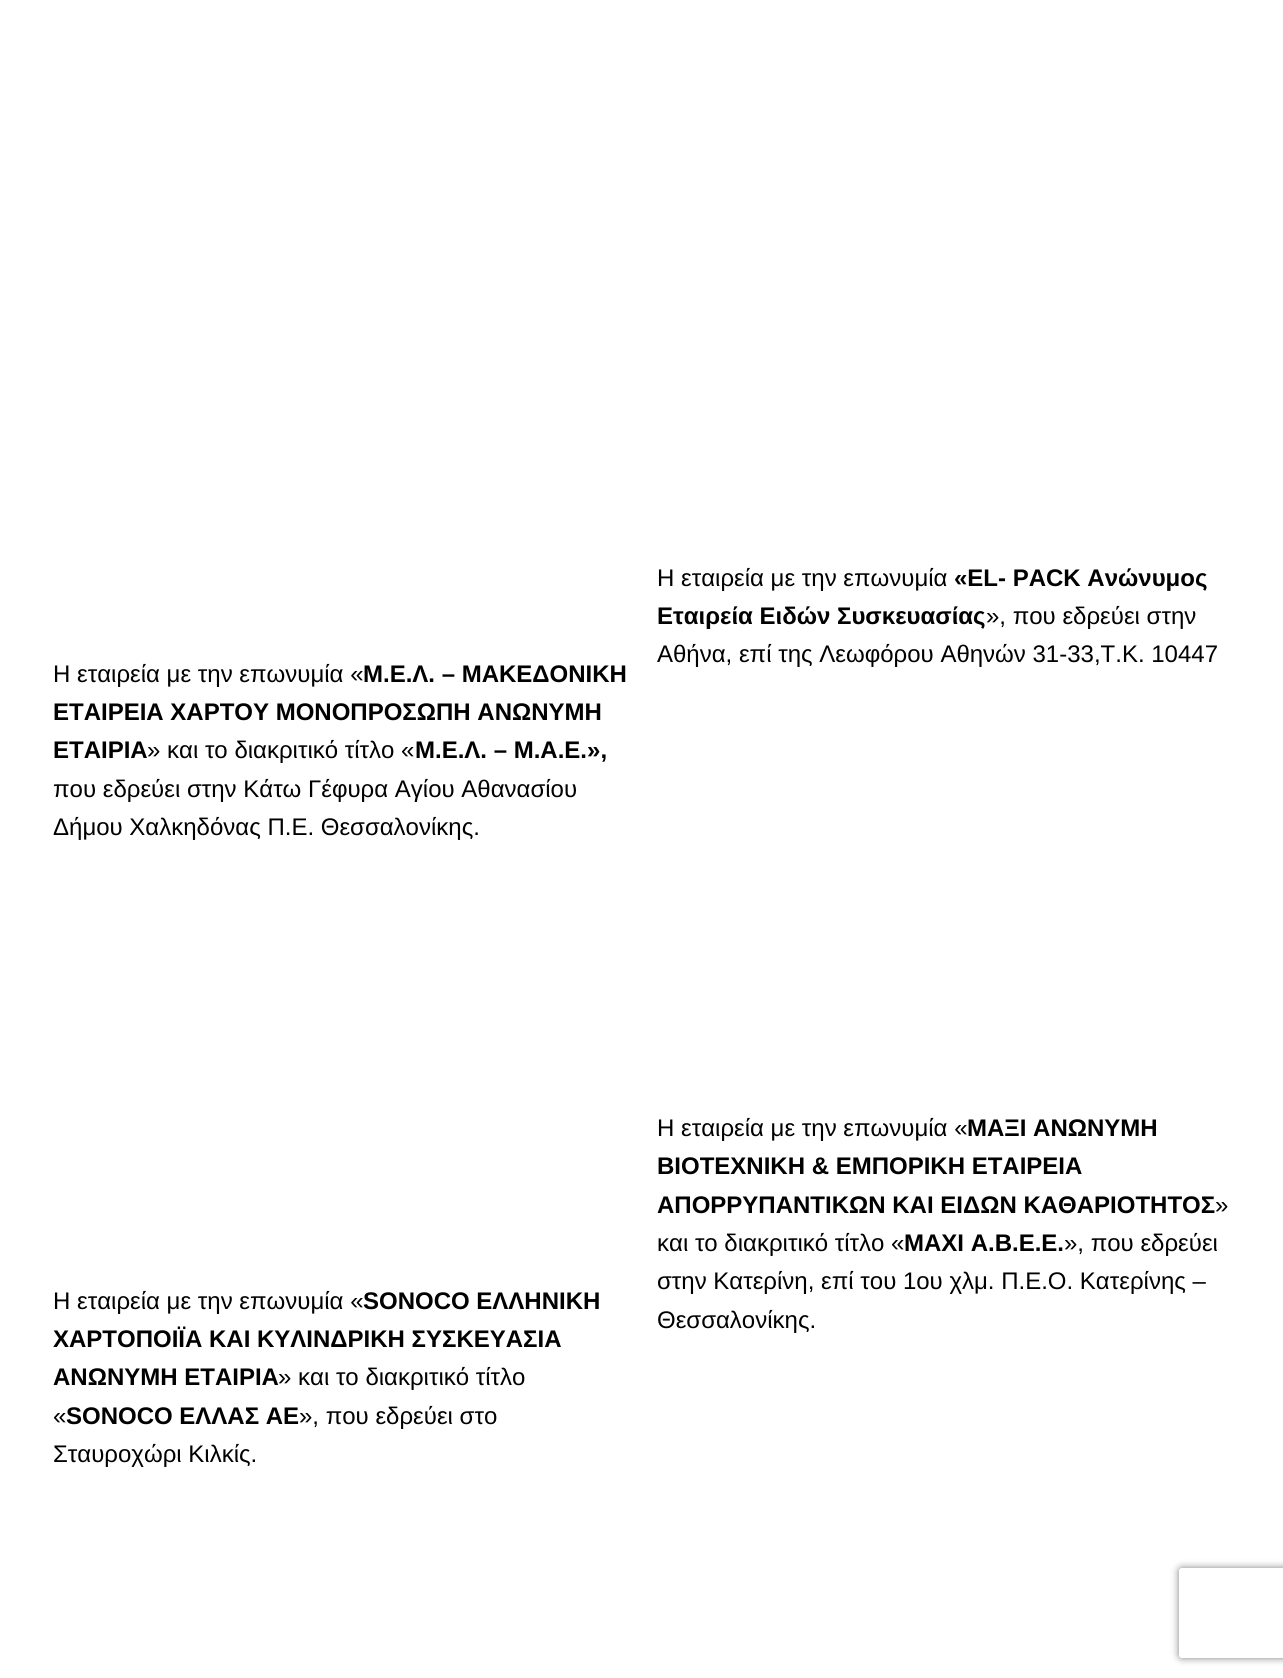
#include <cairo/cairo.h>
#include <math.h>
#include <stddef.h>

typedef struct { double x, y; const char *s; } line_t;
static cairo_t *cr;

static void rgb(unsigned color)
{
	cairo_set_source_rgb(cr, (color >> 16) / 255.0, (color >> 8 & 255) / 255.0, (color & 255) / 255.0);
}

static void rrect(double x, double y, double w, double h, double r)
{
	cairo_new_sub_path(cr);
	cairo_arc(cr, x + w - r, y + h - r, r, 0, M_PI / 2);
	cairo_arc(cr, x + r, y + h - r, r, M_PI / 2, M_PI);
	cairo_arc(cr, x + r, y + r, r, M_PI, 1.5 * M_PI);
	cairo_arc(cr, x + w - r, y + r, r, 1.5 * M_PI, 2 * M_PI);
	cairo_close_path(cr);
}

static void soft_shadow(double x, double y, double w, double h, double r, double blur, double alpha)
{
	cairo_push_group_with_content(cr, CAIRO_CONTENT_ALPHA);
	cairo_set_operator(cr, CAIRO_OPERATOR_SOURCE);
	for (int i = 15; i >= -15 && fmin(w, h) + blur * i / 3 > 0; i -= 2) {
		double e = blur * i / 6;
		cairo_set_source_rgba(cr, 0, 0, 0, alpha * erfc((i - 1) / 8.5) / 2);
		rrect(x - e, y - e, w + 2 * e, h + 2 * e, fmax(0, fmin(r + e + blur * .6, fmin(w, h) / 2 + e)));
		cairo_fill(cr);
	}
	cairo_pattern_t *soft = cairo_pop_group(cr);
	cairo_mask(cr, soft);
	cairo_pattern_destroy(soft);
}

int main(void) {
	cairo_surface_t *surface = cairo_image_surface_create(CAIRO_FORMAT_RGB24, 1283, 1678);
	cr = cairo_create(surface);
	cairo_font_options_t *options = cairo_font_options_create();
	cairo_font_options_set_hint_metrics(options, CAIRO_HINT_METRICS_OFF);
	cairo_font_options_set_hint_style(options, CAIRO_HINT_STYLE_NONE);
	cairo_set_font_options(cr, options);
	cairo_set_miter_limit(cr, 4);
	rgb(0xffffff);
	cairo_paint(cr);
	cairo_save(cr);
	cairo_set_fill_rule(cr, CAIRO_FILL_RULE_EVEN_ODD);
	cairo_new_path(cr);
	cairo_move_to(cr, 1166, 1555);
	cairo_line_to(cr, 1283, 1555);
	cairo_line_to(cr, 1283, 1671);
	cairo_line_to(cr, 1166, 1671);
	cairo_close_path(cr);
	cairo_move_to(cr, 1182, 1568);
	cairo_line_to(cr, 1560, 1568);
	cairo_curve_to(cr, 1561.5, 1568, 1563, 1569.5, 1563, 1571);
	cairo_line_to(cr, 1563, 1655);
	cairo_curve_to(cr, 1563, 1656.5, 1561.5, 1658, 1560, 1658);
	cairo_line_to(cr, 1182, 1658);
	cairo_curve_to(cr, 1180.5, 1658, 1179, 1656.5, 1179, 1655);
	cairo_line_to(cr, 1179, 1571);
	cairo_curve_to(cr, 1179, 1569.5, 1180.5, 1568, 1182, 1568);
	cairo_close_path(cr);
	cairo_clip(cr);
	rgb(0x808080);
	soft_shadow(1179, 1568, 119, 90, 3, 4, 1);
	cairo_restore(cr);
	cairo_select_font_face(cr, "Liberation Sans", CAIRO_FONT_SLANT_NORMAL, CAIRO_FONT_WEIGHT_NORMAL);
	cairo_set_font_size(cr, 24);
	rgb(0x000000);
	cairo_move_to(cr, 53, 682);
	cairo_show_text(cr, "Η εταιρεία με την επωνυμία «");
	cairo_select_font_face(cr, "Liberation Sans", CAIRO_FONT_SLANT_NORMAL, CAIRO_FONT_WEIGHT_BOLD);
	{
		static const line_t items[] = {
			{363, 682, "Μ.Ε.Λ. – ΜΑΚΕΔΟΝΙΚΗ"},
			{53, 720, "ΕΤΑΙΡΕΙΑ ΧΑΡΤΟΥ ΜΟΝΟΠΡΟΣΩΠΗ ΑΝΩΝΥΜΗ"},
			{53, 758, "ΕΤΑΙΡΙΑ"},
		};
		for (size_t i = 0; i < sizeof items / sizeof *items; i++) {
			cairo_move_to(cr, items[i].x, items[i].y);
			cairo_show_text(cr, items[i].s);
		}
	}
	cairo_select_font_face(cr, "Liberation Sans", CAIRO_FONT_SLANT_NORMAL, CAIRO_FONT_WEIGHT_NORMAL);
	cairo_move_to(cr, 147, 758);
	cairo_show_text(cr, "» και το διακριτικό τίτλο «");
	cairo_select_font_face(cr, "Liberation Sans", CAIRO_FONT_SLANT_NORMAL, CAIRO_FONT_WEIGHT_BOLD);
	cairo_move_to(cr, 415, 758);
	cairo_show_text(cr, "Μ.Ε.Λ. – Μ.Α.Ε.»,");
	cairo_select_font_face(cr, "Liberation Sans", CAIRO_FONT_SLANT_NORMAL, CAIRO_FONT_WEIGHT_NORMAL);
	{
		static const line_t items[] = {
			{53, 797, "που εδρεύει στην Κάτω Γέφυρα Αγίου Αθανασίου"},
			{53, 835, "Δήμου Χαλκηδόνας Π.Ε. Θεσσαλονίκης."},
			{53, 1309, "Η εταιρεία με την επωνυμία «"},
		};
		for (size_t i = 0; i < sizeof items / sizeof *items; i++) {
			cairo_move_to(cr, items[i].x, items[i].y);
			cairo_show_text(cr, items[i].s);
		}
	}
	cairo_select_font_face(cr, "Liberation Sans", CAIRO_FONT_SLANT_NORMAL, CAIRO_FONT_WEIGHT_BOLD);
	{
		static const line_t items[] = {
			{363, 1309, "SONOCO ΕΛΛΗΝΙΚΗ"},
			{53, 1347, "ΧΑΡΤΟΠΟΙΪΑ ΚΑΙ ΚΥΛΙΝΔΡΙΚΗ ΣΥΣΚΕΥΑΣΙΑ"},
			{53, 1385, "ΑΝΩΝΥΜΗ ΕΤΑΙΡΙΑ"},
		};
		for (size_t i = 0; i < sizeof items / sizeof *items; i++) {
			cairo_move_to(cr, items[i].x, items[i].y);
			cairo_show_text(cr, items[i].s);
		}
	}
	cairo_select_font_face(cr, "Liberation Sans", CAIRO_FONT_SLANT_NORMAL, CAIRO_FONT_WEIGHT_NORMAL);
	cairo_move_to(cr, 278, 1385);
	cairo_show_text(cr, "» και το διακριτικό τίτλο");
	cairo_move_to(cr, 53, 1424);
	cairo_show_text(cr, "«");
	cairo_select_font_face(cr, "Liberation Sans", CAIRO_FONT_SLANT_NORMAL, CAIRO_FONT_WEIGHT_BOLD);
	cairo_move_to(cr, 66, 1424);
	cairo_show_text(cr, "SONOCO ΕΛΛΑΣ ΑΕ");
	cairo_select_font_face(cr, "Liberation Sans", CAIRO_FONT_SLANT_NORMAL, CAIRO_FONT_WEIGHT_NORMAL);
	{
		static const line_t items[] = {
			{299, 1424, "», που εδρεύει στο"},
			{53, 1462, "Σταυροχώρι Κιλκίς."},
			{657, 586, "Η εταιρεία με την επωνυμία"},
		};
		for (size_t i = 0; i < sizeof items / sizeof *items; i++) {
			cairo_move_to(cr, items[i].x, items[i].y);
			cairo_show_text(cr, items[i].s);
		}
	}
	cairo_select_font_face(cr, "Liberation Sans", CAIRO_FONT_SLANT_NORMAL, CAIRO_FONT_WEIGHT_BOLD);
	cairo_move_to(cr, 954, 586);
	cairo_show_text(cr, "«ΕL- ΡΑCΚ Ανώνυμος");
	cairo_move_to(cr, 657, 624);
	cairo_show_text(cr, "Εταιρεία Ειδών Συσκευασίας");
	cairo_select_font_face(cr, "Liberation Sans", CAIRO_FONT_SLANT_NORMAL, CAIRO_FONT_WEIGHT_NORMAL);
	{
		static const line_t items[] = {
			{986, 624, "», που εδρεύει στην"},
			{657, 662, "Αθήνα, επί της Λεωφόρου Αθηνών 31-33,Τ.Κ. 10447"},
			{657, 1136, "Η εταιρεία με την επωνυμία «"},
		};
		for (size_t i = 0; i < sizeof items / sizeof *items; i++) {
			cairo_move_to(cr, items[i].x, items[i].y);
			cairo_show_text(cr, items[i].s);
		}
	}
	cairo_select_font_face(cr, "Liberation Sans", CAIRO_FONT_SLANT_NORMAL, CAIRO_FONT_WEIGHT_BOLD);
	{
		static const line_t items[] = {
			{967, 1136, "ΜΑΞΙ ΑΝΩΝΥΜΗ"},
			{657, 1174, "ΒΙΟΤΕΧΝΙΚΗ & ΕΜΠΟΡΙΚΗ ΕΤΑΙΡΕΙΑ"},
			{657, 1213, "ΑΠΟΡΡΥΠΑΝΤΙΚΩΝ ΚΑΙ ΕΙΔΩΝ ΚΑΘΑΡΙΟΤΗΤΟΣ"},
		};
		for (size_t i = 0; i < sizeof items / sizeof *items; i++) {
			cairo_move_to(cr, items[i].x, items[i].y);
			cairo_show_text(cr, items[i].s);
		}
	}
	cairo_select_font_face(cr, "Liberation Sans", CAIRO_FONT_SLANT_NORMAL, CAIRO_FONT_WEIGHT_NORMAL);
	cairo_move_to(cr, 1215, 1213);
	cairo_show_text(cr, "»");
	cairo_move_to(cr, 657, 1251);
	cairo_show_text(cr, "και το διακριτικό τίτλο «");
	cairo_select_font_face(cr, "Liberation Sans", CAIRO_FONT_SLANT_NORMAL, CAIRO_FONT_WEIGHT_BOLD);
	cairo_move_to(cr, 904, 1251);
	cairo_show_text(cr, "ΜΑΧΙ Α.Β.Ε.Ε.");
	cairo_select_font_face(cr, "Liberation Sans", CAIRO_FONT_SLANT_NORMAL, CAIRO_FONT_WEIGHT_NORMAL);
	{
		static const line_t items[] = {
			{1064, 1251, "», που εδρεύει"},
			{657, 1289, "στην Κατερίνη, επί του 1ου χλμ. Π.Ε.Ο. Κατερίνης –"},
			{657, 1328, "Θεσσαλονίκης."},
		};
		for (size_t i = 0; i < sizeof items / sizeof *items; i++) {
			cairo_move_to(cr, items[i].x, items[i].y);
			cairo_show_text(cr, items[i].s);
		}
	}
	cairo_surface_write_to_png(surface, "page.png");
	cairo_font_options_destroy(options);
	cairo_destroy(cr);
	cairo_surface_destroy(surface);
	return 0;
}
